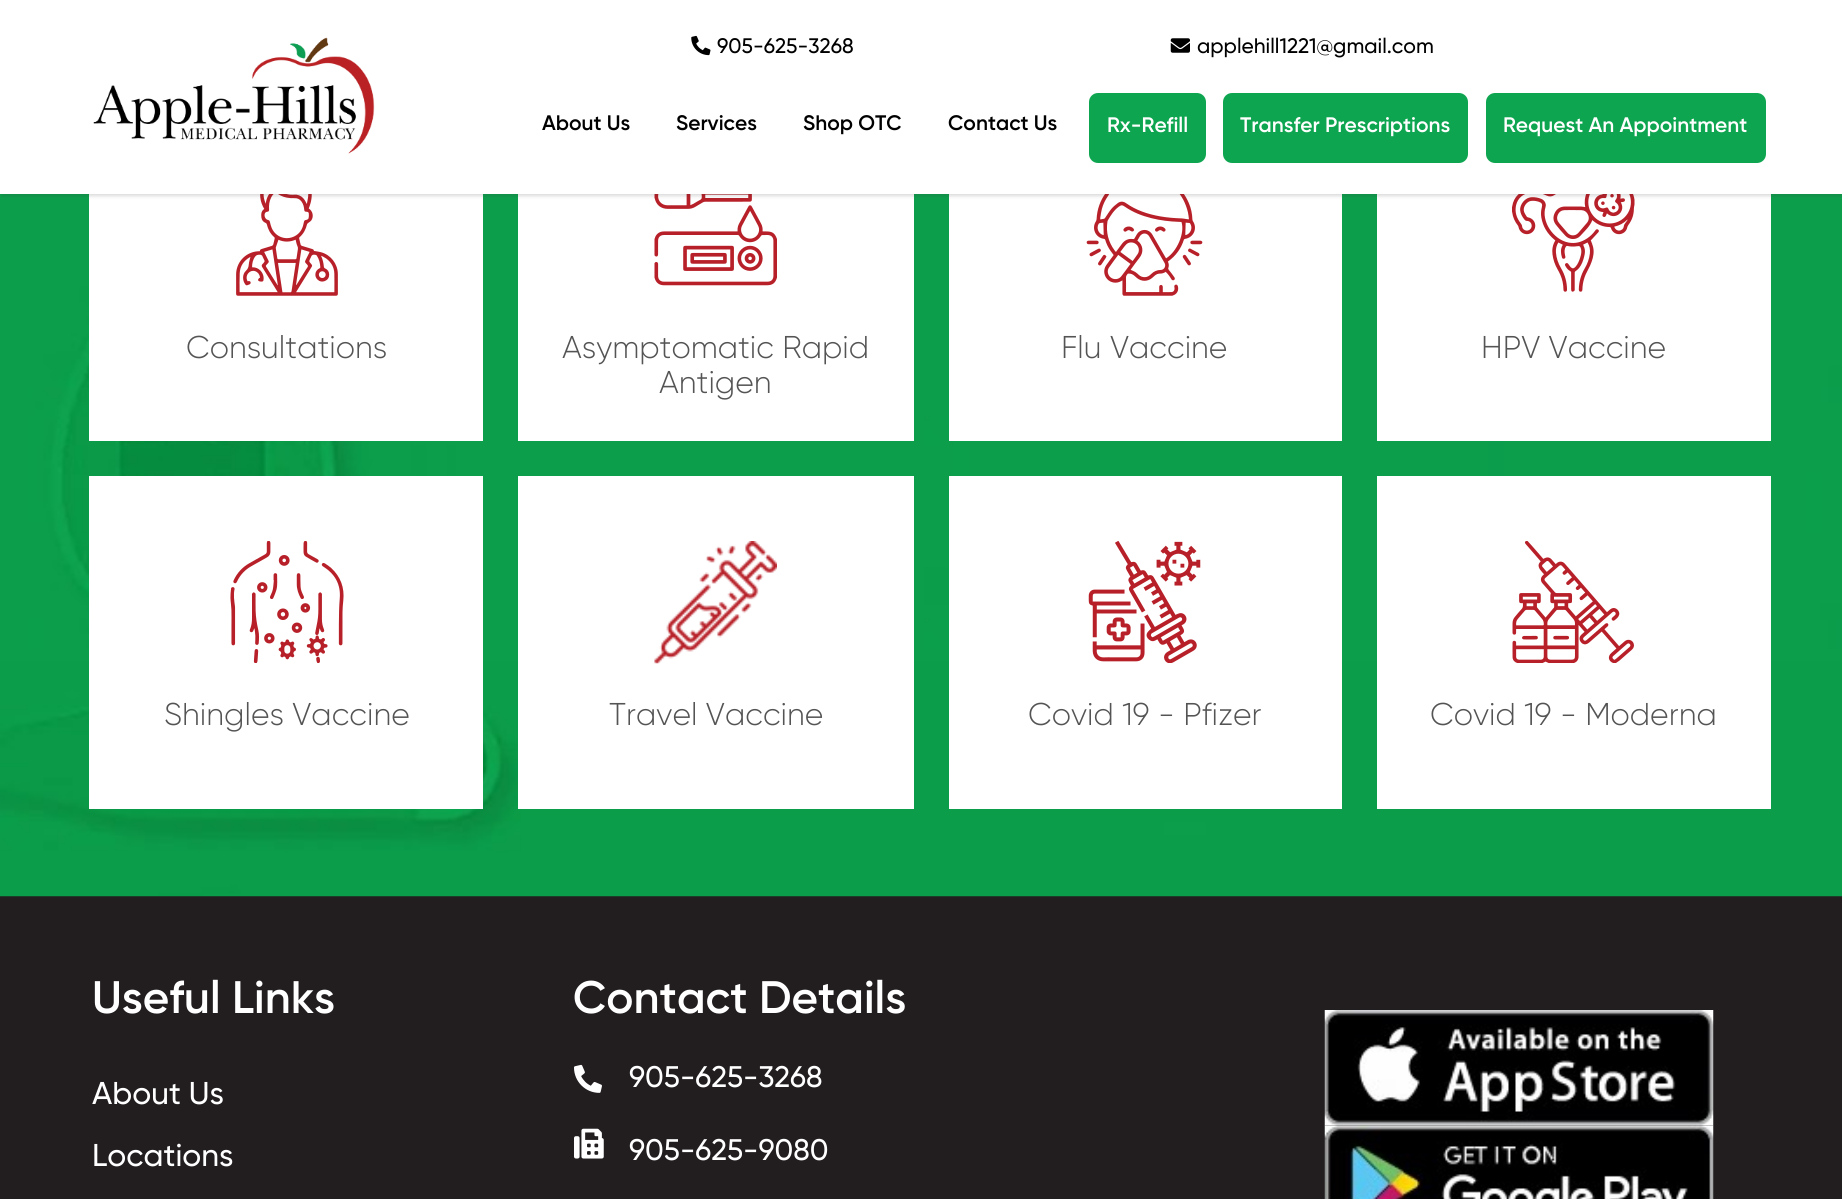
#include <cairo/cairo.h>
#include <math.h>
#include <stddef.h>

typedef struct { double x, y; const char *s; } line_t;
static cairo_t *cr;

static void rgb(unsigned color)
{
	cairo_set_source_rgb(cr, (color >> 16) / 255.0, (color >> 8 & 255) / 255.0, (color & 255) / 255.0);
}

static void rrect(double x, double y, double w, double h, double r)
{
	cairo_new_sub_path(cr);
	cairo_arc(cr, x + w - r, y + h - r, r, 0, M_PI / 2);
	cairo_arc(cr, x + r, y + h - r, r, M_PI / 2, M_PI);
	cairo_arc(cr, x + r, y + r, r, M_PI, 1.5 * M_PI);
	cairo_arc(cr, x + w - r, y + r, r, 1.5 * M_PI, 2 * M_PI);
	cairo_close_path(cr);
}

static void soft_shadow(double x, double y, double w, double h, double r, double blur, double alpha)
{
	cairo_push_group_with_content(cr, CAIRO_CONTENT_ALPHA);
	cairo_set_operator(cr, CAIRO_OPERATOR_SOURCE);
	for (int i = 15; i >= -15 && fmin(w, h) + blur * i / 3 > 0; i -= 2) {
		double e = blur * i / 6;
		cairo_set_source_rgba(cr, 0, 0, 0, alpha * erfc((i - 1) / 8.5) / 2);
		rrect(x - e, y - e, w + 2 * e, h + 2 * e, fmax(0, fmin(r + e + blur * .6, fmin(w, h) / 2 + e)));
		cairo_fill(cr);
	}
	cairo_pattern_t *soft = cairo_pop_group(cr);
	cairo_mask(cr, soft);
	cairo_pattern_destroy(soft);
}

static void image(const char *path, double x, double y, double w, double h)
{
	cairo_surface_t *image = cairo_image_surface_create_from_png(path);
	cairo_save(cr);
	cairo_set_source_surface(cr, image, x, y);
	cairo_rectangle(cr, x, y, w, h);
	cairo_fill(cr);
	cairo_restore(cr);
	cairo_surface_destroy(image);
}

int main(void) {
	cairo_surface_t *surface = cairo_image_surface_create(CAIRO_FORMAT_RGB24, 1842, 1199);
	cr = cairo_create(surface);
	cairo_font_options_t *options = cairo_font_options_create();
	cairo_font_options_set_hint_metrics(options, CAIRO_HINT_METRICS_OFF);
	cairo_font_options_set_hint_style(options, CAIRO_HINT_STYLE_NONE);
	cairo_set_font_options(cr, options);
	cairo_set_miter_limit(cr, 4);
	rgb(0x221e1f);
	cairo_paint(cr);
	image("img/4.png", 0, 194, 1842, 703);
	rgb(0xffffff);
	cairo_rectangle(cr, 89, 194, 394, 247);
	cairo_fill(cr);
	image("img/5.png", 236, 194, 102, 102);
	cairo_rectangle(cr, 518, 194, 396, 247);
	cairo_fill(cr);
	image("img/6.png", 654, 194, 123, 92);
	cairo_rectangle(cr, 949, 194, 393, 247);
	cairo_fill(cr);
	image("img/7.png", 1086, 194, 117, 102);
	cairo_rectangle(cr, 1377, 194, 394, 247);
	cairo_fill(cr);
	image("img/8.png", 1512, 194, 123, 98);
	rgb(0x302d30);
	soft_shadow(2, 5, 1839, 191, 0, 2, 0.18);
	rgb(0xffffff);
	cairo_rectangle(cr, 0, 0, 1842, 194);
	cairo_fill(cr);
	image("img/1.png", 93, 37, 282, 117);
	image("img/2.png", 691, 35, 20, 21);
	image("img/3.png", 1170, 38, 20, 15);
	rgb(0x0ea550);
	rrect(1089, 93, 117, 70, 9);
	cairo_fill(cr);
	rrect(1223, 93, 245, 70, 9);
	cairo_fill(cr);
	rrect(1486, 93, 280, 70, 9);
	cairo_fill(cr);
	rgb(0xffffff);
	cairo_rectangle(cr, 89, 476, 394, 333);
	cairo_fill(cr);
	image("img/9.png", 230, 541, 114, 122);
	cairo_rectangle(cr, 518, 476, 396, 333);
	cairo_fill(cr);
	image("img/10.png", 654, 541, 123, 123);
	cairo_rectangle(cr, 949, 476, 393, 333);
	cairo_fill(cr);
	image("img/11.png", 1088, 541, 113, 122);
	cairo_rectangle(cr, 1377, 476, 394, 333);
	cairo_fill(cr);
	image("img/12.png", 1512, 541, 122, 122);
	image("img/13.png", 574, 1064, 28, 29);
	image("img/14.png", 574, 1128, 30, 31);
	image("img/15.png", 1324, 1010, 390, 116);
	image("img/16.png", 1324, 1125, 390, 74);
	cairo_select_font_face(cr, "Gilroy Medium", CAIRO_FONT_SLANT_NORMAL, CAIRO_FONT_WEIGHT_NORMAL);
	cairo_set_font_size(cr, 21);
	rgb(0x000000);
	cairo_move_to(cr, 717, 53);
	cairo_show_text(cr, "905-625-3268");
	cairo_move_to(cr, 1197, 53);
	cairo_show_text(cr, "applehill1221@gmail.com");
	cairo_select_font_face(cr, "Gilroy SemiBold", CAIRO_FONT_SLANT_NORMAL, CAIRO_FONT_WEIGHT_NORMAL);
	{
		static const line_t items[] = {
			{542, 130, "About Us"},
			{676, 130, "Services"},
			{803, 130, "Shop OTC"},
			{948, 130, "Contact Us"},
		};
		for (size_t i = 0; i < sizeof items / sizeof *items; i++) {
			cairo_move_to(cr, items[i].x, items[i].y);
			cairo_show_text(cr, items[i].s);
		}
	}
	rgb(0xffffff);
	{
		static const line_t items[] = {
			{1107, 132, "Rx-Refill"},
			{1240, 132, "Transfer Prescriptions"},
			{1503, 132, "Request An Appointment"},
		};
		for (size_t i = 0; i < sizeof items / sizeof *items; i++) {
			cairo_move_to(cr, items[i].x, items[i].y);
			cairo_show_text(cr, items[i].s);
		}
	}
	cairo_select_font_face(cr, "Gilroy Light", CAIRO_FONT_SLANT_NORMAL, CAIRO_FONT_WEIGHT_NORMAL);
	cairo_set_font_size(cr, 31.5);
	rgb(0x545454);
	{
		static const line_t items[] = {
			{186, 358, "Consultations"},
			{562, 358, "Asymptomatic Rapid"},
			{659, 393, "Antigen"},
			{1061, 358, "Flu Vaccine"},
			{1481, 358, "HPV Vaccine"},
			{164, 725, "Shingles Vaccine"},
			{609, 725, "Travel Vaccine"},
			{1028, 725, "Covid 19 - Pfizer"},
			{1430, 725, "Covid 19 - Moderna"},
		};
		for (size_t i = 0; i < sizeof items / sizeof *items; i++) {
			cairo_move_to(cr, items[i].x, items[i].y);
			cairo_show_text(cr, items[i].s);
		}
	}
	cairo_select_font_face(cr, "Gilroy SemiBold", CAIRO_FONT_SLANT_NORMAL, CAIRO_FONT_WEIGHT_NORMAL);
	cairo_set_font_size(cr, 45.5);
	rgb(0xffffff);
	cairo_move_to(cr, 92, 1013);
	cairo_show_text(cr, "Useful Links");
	cairo_select_font_face(cr, "Gilroy Medium", CAIRO_FONT_SLANT_NORMAL, CAIRO_FONT_WEIGHT_NORMAL);
	cairo_set_font_size(cr, 31.5);
	cairo_move_to(cr, 92, 1104);
	cairo_show_text(cr, "About Us");
	cairo_move_to(cr, 92, 1166);
	cairo_show_text(cr, "Locations");
	cairo_select_font_face(cr, "Gilroy SemiBold", CAIRO_FONT_SLANT_NORMAL, CAIRO_FONT_WEIGHT_NORMAL);
	cairo_set_font_size(cr, 45.5);
	cairo_move_to(cr, 573, 1013);
	cairo_show_text(cr, "Contact Details");
	cairo_select_font_face(cr, "Gilroy Medium", CAIRO_FONT_SLANT_NORMAL, CAIRO_FONT_WEIGHT_NORMAL);
	cairo_set_font_size(cr, 29.75);
	cairo_move_to(cr, 629, 1087);
	cairo_show_text(cr, "905-625-3268");
	cairo_move_to(cr, 629, 1160);
	cairo_show_text(cr, "905-625-9080");
	cairo_surface_write_to_png(surface, "page.png");
	cairo_font_options_destroy(options);
	cairo_destroy(cr);
	cairo_surface_destroy(surface);
	return 0;
}
